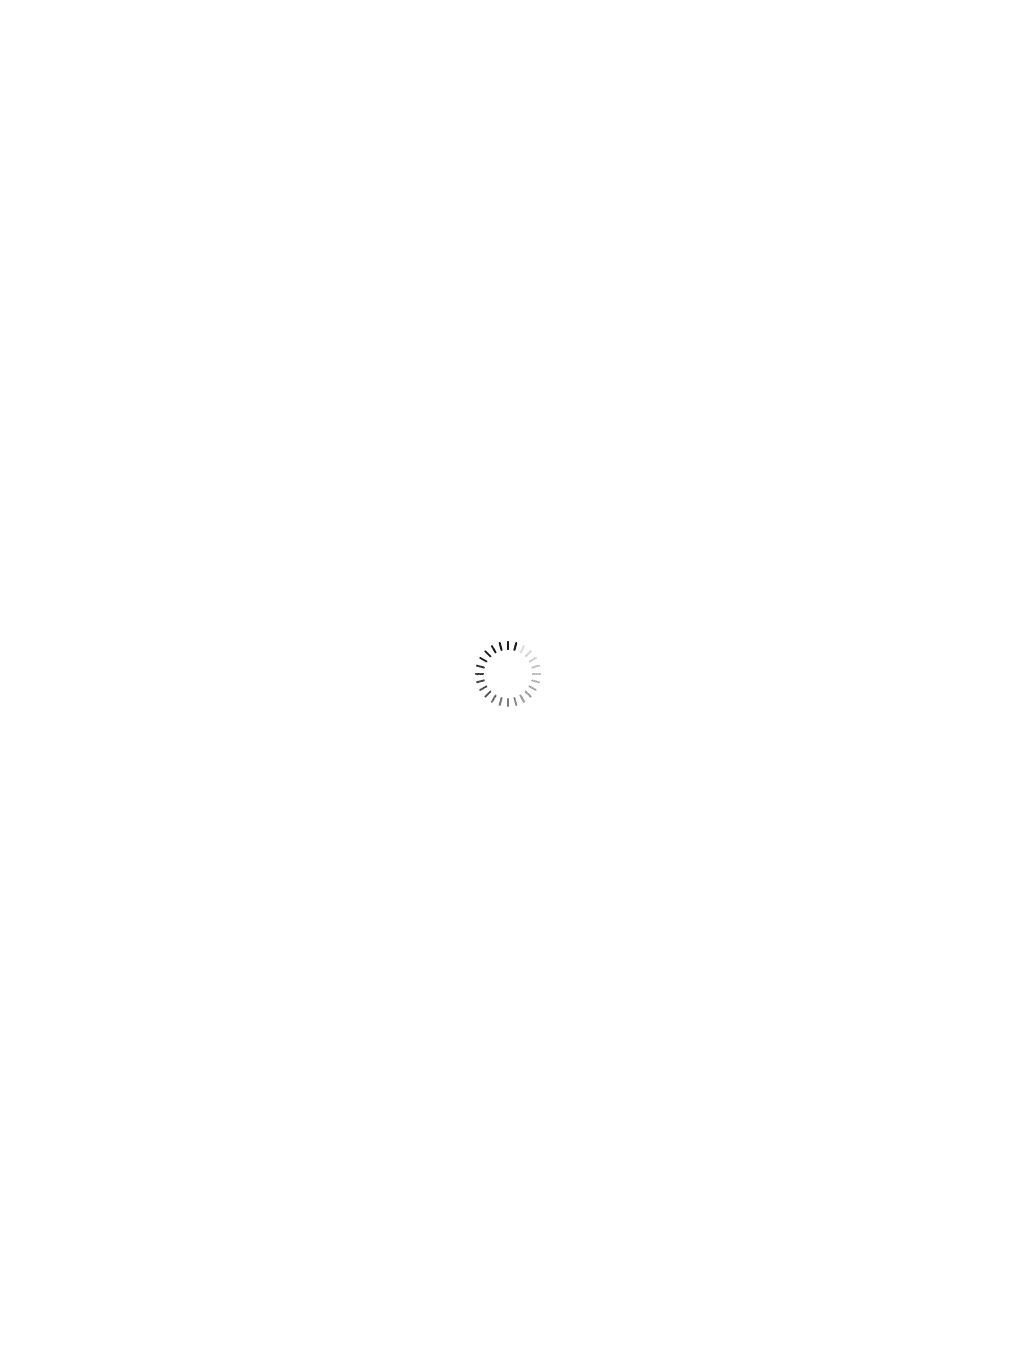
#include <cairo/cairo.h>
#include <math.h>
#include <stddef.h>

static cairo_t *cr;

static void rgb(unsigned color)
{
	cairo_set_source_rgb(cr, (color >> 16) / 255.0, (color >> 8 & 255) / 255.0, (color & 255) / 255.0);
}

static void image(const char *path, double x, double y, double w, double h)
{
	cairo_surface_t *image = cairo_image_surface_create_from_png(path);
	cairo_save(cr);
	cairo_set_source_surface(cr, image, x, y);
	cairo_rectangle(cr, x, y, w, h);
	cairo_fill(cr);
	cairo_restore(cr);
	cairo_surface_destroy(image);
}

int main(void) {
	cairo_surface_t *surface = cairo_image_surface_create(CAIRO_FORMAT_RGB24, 1015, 1348);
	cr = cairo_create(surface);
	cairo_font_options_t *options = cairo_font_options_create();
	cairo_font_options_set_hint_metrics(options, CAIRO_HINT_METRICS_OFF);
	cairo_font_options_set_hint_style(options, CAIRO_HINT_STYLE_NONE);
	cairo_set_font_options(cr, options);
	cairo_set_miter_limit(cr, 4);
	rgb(0xffffff);
	cairo_paint(cr);
	image("img/1.png", 475, 641, 66, 66);
	cairo_surface_write_to_png(surface, "page.png");
	cairo_font_options_destroy(options);
	cairo_destroy(cr);
	cairo_surface_destroy(surface);
	return 0;
}
